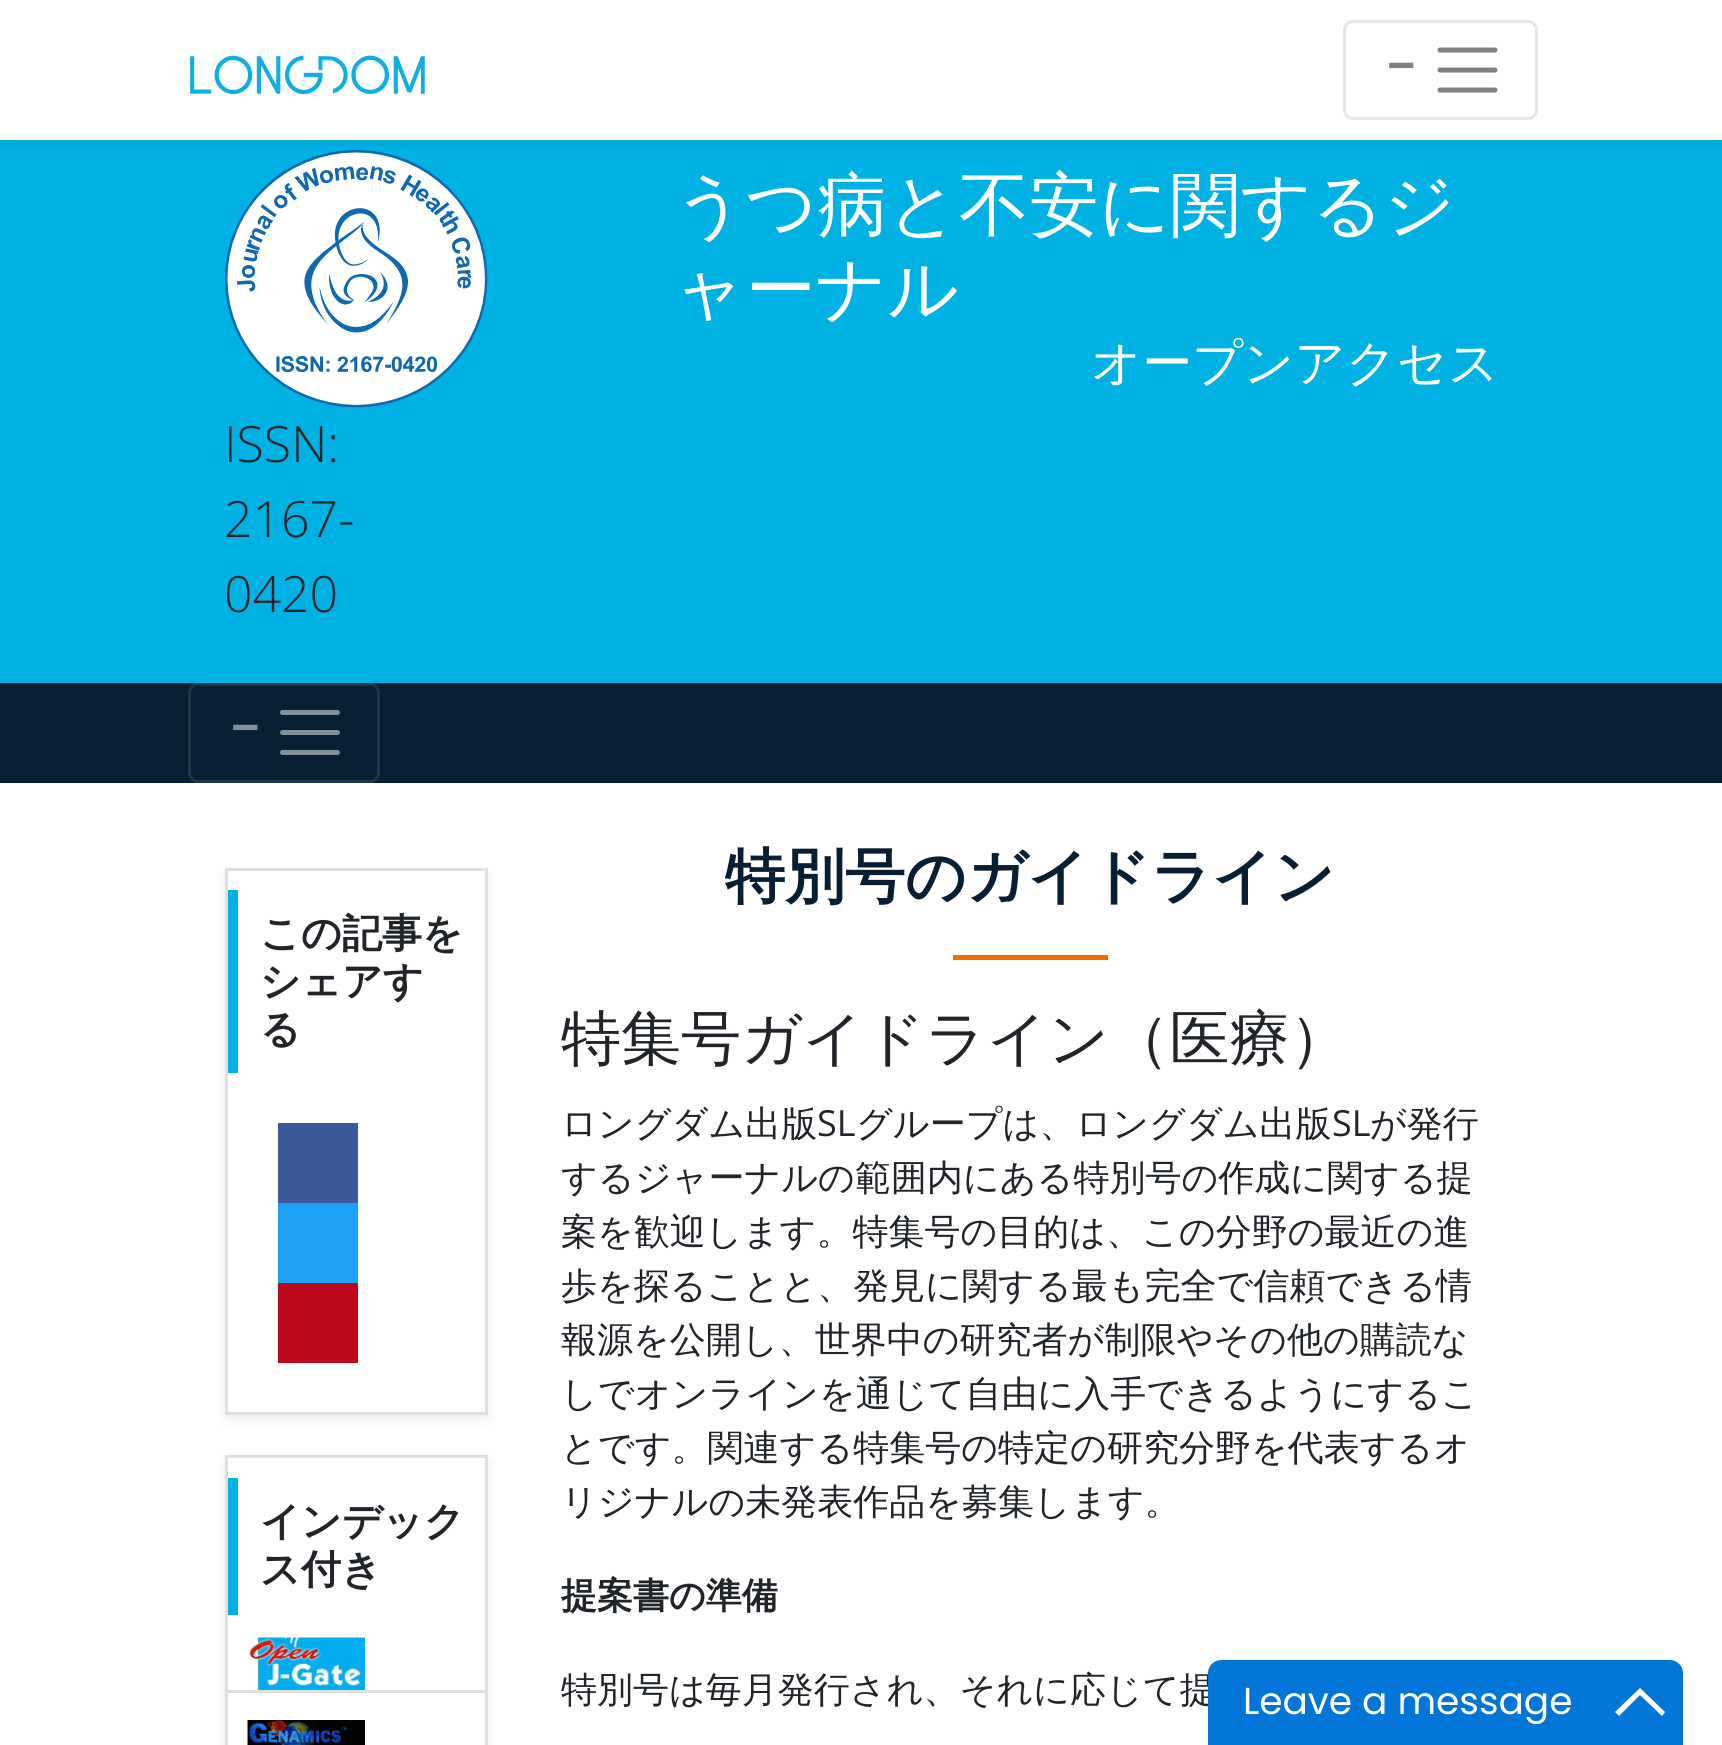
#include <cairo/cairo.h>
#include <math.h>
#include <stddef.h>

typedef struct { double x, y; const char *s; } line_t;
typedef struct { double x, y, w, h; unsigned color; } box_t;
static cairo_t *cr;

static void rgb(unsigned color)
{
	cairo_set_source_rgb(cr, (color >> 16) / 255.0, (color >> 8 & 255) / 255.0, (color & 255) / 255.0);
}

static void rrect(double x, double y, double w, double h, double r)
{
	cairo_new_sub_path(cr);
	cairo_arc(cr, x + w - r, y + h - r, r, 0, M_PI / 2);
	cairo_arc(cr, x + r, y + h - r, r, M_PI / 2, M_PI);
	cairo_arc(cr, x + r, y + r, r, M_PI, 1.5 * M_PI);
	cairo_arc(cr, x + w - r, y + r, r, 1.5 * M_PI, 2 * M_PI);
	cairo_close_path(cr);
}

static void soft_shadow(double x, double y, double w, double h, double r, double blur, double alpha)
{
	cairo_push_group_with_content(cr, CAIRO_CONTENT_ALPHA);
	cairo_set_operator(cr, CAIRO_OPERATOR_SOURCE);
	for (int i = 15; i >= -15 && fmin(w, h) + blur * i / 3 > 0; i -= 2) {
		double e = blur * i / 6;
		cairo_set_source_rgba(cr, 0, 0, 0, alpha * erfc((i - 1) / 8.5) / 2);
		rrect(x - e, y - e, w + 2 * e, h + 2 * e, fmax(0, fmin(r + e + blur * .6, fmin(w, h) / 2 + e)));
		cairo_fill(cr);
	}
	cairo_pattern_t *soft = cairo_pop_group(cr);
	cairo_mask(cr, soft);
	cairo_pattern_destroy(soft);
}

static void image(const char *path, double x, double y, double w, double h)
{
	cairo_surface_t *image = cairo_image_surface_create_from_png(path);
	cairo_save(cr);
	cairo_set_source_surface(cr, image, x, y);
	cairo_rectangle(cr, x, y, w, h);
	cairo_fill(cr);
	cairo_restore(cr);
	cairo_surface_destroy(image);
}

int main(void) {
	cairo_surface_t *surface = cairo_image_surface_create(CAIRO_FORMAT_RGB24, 1722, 1745);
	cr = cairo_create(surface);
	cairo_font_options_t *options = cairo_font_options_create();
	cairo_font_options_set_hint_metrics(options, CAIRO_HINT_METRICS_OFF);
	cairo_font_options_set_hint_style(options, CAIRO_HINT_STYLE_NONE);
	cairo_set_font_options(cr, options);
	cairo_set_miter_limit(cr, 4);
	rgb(0xffffff);
	cairo_paint(cr);
	rgb(0x00b1e4);
	cairo_rectangle(cr, 0, 140, 1722, 543);
	cairo_fill(cr);
	cairo_save(cr);
	cairo_rectangle(cr, 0, 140, 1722, 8);
	cairo_clip(cr);
	rgb(0x000000);
	soft_shadow(0, 5, 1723, 140, 0, 5, 0.07);
	cairo_restore(cr);
	image("img/1.png", 190, 55, 236, 40);
	rrect(1344.5, 21.5, 192, 97, 8.5);
	rgb(0xe6e6e6);
	cairo_set_line_width(cr, 3);
	cairo_stroke(cr);
	cairo_new_path(cr);
	cairo_move_to(cr, 1440, 50);
	cairo_line_to(cr, 1495, 50);
	cairo_move_to(cr, 1440, 70);
	cairo_line_to(cr, 1495, 70);
	cairo_move_to(cr, 1440, 90);
	cairo_line_to(cr, 1495, 90);
	rgb(0x808080);
	cairo_set_line_width(cr, 5);
	cairo_set_line_cap(cr, CAIRO_LINE_CAP_ROUND);
	cairo_stroke(cr);
	image("img/2.png", 225, 150, 263, 258);
	rgb(0x071e33);
	cairo_rectangle(cr, 0, 683, 1722, 100);
	cairo_fill(cr);
	rrect(189.5, 684.5, 189, 97, 8.5);
	rgb(0x203547);
	cairo_set_line_width(cr, 3);
	cairo_set_line_cap(cr, CAIRO_LINE_CAP_BUTT);
	cairo_stroke(cr);
	cairo_new_path(cr);
	cairo_move_to(cr, 282.5, 712.5);
	cairo_line_to(cr, 337.5, 712.5);
	cairo_move_to(cr, 282.5, 732.5);
	cairo_line_to(cr, 337.5, 732.5);
	cairo_move_to(cr, 282.5, 752.5);
	cairo_line_to(cr, 337.5, 752.5);
	rgb(0x838f99);
	cairo_set_line_width(cr, 5);
	cairo_set_line_cap(cr, CAIRO_LINE_CAP_ROUND);
	cairo_stroke(cr);
	rgb(0x000000);
	soft_shadow(225, 873, 263, 547, 0, 5, 0.07);
	rgb(0xffffff);
	cairo_rectangle(cr, 226.5, 869.5, 260, 544);
	cairo_fill_preserve(cr);
	rgb(0xdfdfdf);
	cairo_set_line_width(cr, 3);
	cairo_set_line_cap(cr, CAIRO_LINE_CAP_BUTT);
	cairo_stroke(cr);
	{
		static const box_t items[] = {
			{228, 890, 10, 183, 0x00b1e4},
			{278, 1123, 80, 80, 0x3b5998},
			{278, 1203, 80, 80, 0x1da1f2},
			{278, 1283, 80, 80, 0xbd081c},
		};
		for (size_t i = 0; i < sizeof items / sizeof *items; i++) {
			rgb(items[i].color);
			cairo_rectangle(cr, items[i].x, items[i].y, items[i].w, items[i].h);
			cairo_fill(cr);
		}
	}
	rgb(0x000000);
	soft_shadow(225, 1460, 263, 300, 0, 5, 0.07);
	rgb(0xffffff);
	cairo_rectangle(cr, 228, 1458, 257, 232);
	cairo_fill(cr);
	cairo_rectangle(cr, 226.5, 1456.5, 260, 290);
	rgb(0xdfdfdf);
	cairo_stroke(cr);
	rgb(0x00b1e4);
	cairo_rectangle(cr, 228, 1478, 10, 137);
	cairo_fill(cr);
	image("img/3.png", 247, 1637, 118, 53);
	rgb(0xffffff);
	cairo_rectangle(cr, 228, 1693, 257, 52);
	cairo_fill(cr);
	rgb(0xdfdfdf);
	cairo_rectangle(cr, 228, 1690, 257, 3);
	cairo_fill(cr);
	image("img/4.png", 247, 1720, 118, 25);
	rgb(0xef6c00);
	cairo_rectangle(cr, 953, 955, 155, 5);
	cairo_fill(cr);
	cairo_select_font_face(cr, "Open Sans", CAIRO_FONT_SLANT_NORMAL, CAIRO_FONT_WEIGHT_BOLD);
	cairo_set_font_size(cr, 50);
	rgb(0x808080);
	cairo_move_to(cr, 1387, 83);
	cairo_show_text(cr, "−");
	cairo_select_font_face(cr, "WenQuanYi Zen Hei Medium", CAIRO_FONT_SLANT_NORMAL, CAIRO_FONT_WEIGHT_NORMAL);
	cairo_set_font_size(cr, 70);
	rgb(0xffffff);
	cairo_move_to(cr, 674, 229);
	cairo_show_text(cr, "うつ病と不安に関するジ");
	cairo_move_to(cr, 674, 313);
	cairo_show_text(cr, "ャーナル");
	cairo_set_font_size(cr, 50);
	cairo_move_to(cr, 1091, 380);
	cairo_show_text(cr, "オープンアクセス");
	cairo_select_font_face(cr, "Open Sans Light", CAIRO_FONT_SLANT_NORMAL, CAIRO_FONT_WEIGHT_NORMAL);
	rgb(0x212529);
	{
		static const line_t items[] = {
			{224, 462, "ISSN:"},
			{224, 537, "2167-"},
			{224, 612, "0420"},
		};
		for (size_t i = 0; i < sizeof items / sizeof *items; i++) {
			cairo_move_to(cr, items[i].x, items[i].y);
			cairo_show_text(cr, items[i].s);
		}
	}
	cairo_select_font_face(cr, "Open Sans", CAIRO_FONT_SLANT_NORMAL, CAIRO_FONT_WEIGHT_BOLD);
	rgb(0x838f99);
	cairo_move_to(cr, 231, 745);
	cairo_show_text(cr, "−");
	cairo_select_font_face(cr, "WenQuanYi Zen Hei", CAIRO_FONT_SLANT_NORMAL, CAIRO_FONT_WEIGHT_BOLD);
	cairo_set_font_size(cr, 40);
	rgb(0x212529);
	{
		static const line_t items[] = {
			{260, 947, "この記事を"},
			{260, 995, "シェアす"},
			{260, 1043, "る"},
			{260, 1535, "インデック"},
			{260, 1583, "ス付き"},
		};
		for (size_t i = 0; i < sizeof items / sizeof *items; i++) {
			cairo_move_to(cr, items[i].x, items[i].y);
			cairo_show_text(cr, items[i].s);
		}
	}
	cairo_set_font_size(cr, 60);
	rgb(0x071e33);
	cairo_move_to(cr, 725, 897);
	cairo_show_text(cr, "特別号のガイドライン");
	cairo_select_font_face(cr, "WenQuanYi Zen Hei Medium", CAIRO_FONT_SLANT_NORMAL, CAIRO_FONT_WEIGHT_NORMAL);
	rgb(0x212529);
	cairo_move_to(cr, 561, 1059);
	cairo_show_text(cr, "特集号ガイドライン（医療）");
	cairo_set_font_size(cr, 36);
	cairo_move_to(cr, 561, 1136);
	cairo_show_text(cr, "ロングダム出版");
	cairo_select_font_face(cr, "Open Sans", CAIRO_FONT_SLANT_NORMAL, CAIRO_FONT_WEIGHT_NORMAL);
	cairo_move_to(cr, 817, 1136);
	cairo_show_text(cr, "SL");
	cairo_select_font_face(cr, "WenQuanYi Zen Hei Medium", CAIRO_FONT_SLANT_NORMAL, CAIRO_FONT_WEIGHT_NORMAL);
	cairo_move_to(cr, 856, 1136);
	cairo_show_text(cr, "グループは、ロングダム出版");
	cairo_select_font_face(cr, "Open Sans", CAIRO_FONT_SLANT_NORMAL, CAIRO_FONT_WEIGHT_NORMAL);
	cairo_move_to(cr, 1332, 1136);
	cairo_show_text(cr, "SL");
	cairo_select_font_face(cr, "WenQuanYi Zen Hei Medium", CAIRO_FONT_SLANT_NORMAL, CAIRO_FONT_WEIGHT_NORMAL);
	{
		static const line_t items[] = {
			{1370, 1136, "が発行"},
			{561, 1190, "するジャーナルの範囲内にある特別号の作成に関する提"},
			{561, 1244, "案を歓迎します。特集号の目的は、この分野の最近の進"},
			{561, 1298, "歩を探ることと、発見に関する最も完全で信頼できる情"},
			{561, 1352, "報源を公開し、世界中の研究者が制限やその他の購読な"},
			{561, 1406, "しでオンラインを通じて自由に入手できるようにするこ"},
			{561, 1460, "とです。関連する特集号の特定の研究分野を代表するオ"},
			{561, 1514, "リジナルの未発表作品を募集します。"},
		};
		for (size_t i = 0; i < sizeof items / sizeof *items; i++) {
			cairo_move_to(cr, items[i].x, items[i].y);
			cairo_show_text(cr, items[i].s);
		}
	}
	cairo_select_font_face(cr, "WenQuanYi Zen Hei", CAIRO_FONT_SLANT_NORMAL, CAIRO_FONT_WEIGHT_BOLD);
	cairo_move_to(cr, 561, 1608);
	cairo_show_text(cr, "提案書の準備");
	cairo_select_font_face(cr, "WenQuanYi Zen Hei Medium", CAIRO_FONT_SLANT_NORMAL, CAIRO_FONT_WEIGHT_NORMAL);
	cairo_move_to(cr, 561, 1702);
	cairo_show_text(cr, "特別号は毎月発行され、それに応じて提");
	rgb(0x0275d8);
	cairo_new_path(cr);
	cairo_move_to(cr, 1221, 1660);
	cairo_line_to(cr, 1670, 1660);
	cairo_curve_to(cr, 1677, 1660, 1683, 1666, 1683, 1673);
	cairo_line_to(cr, 1683, 1745);
	cairo_line_to(cr, 1208, 1745);
	cairo_line_to(cr, 1208, 1673);
	cairo_curve_to(cr, 1208, 1666, 1214, 1660, 1221, 1660);
	cairo_close_path(cr);
	cairo_fill(cr);
	cairo_select_font_face(cr, "Poppins", CAIRO_FONT_SLANT_NORMAL, CAIRO_FONT_WEIGHT_NORMAL);
	cairo_set_font_size(cr, 37.5);
	rgb(0xffffff);
	cairo_move_to(cr, 1243, 1714);
	cairo_show_text(cr, "Leave a message");
	cairo_new_path(cr);
	cairo_move_to(cr, 1640, 1688);
	cairo_line_to(cr, 1665, 1712);
	cairo_line_to(cr, 1662, 1716);
	cairo_line_to(cr, 1640, 1695);
	cairo_line_to(cr, 1619, 1716);
	cairo_line_to(cr, 1615, 1712);
	cairo_close_path(cr);
	cairo_fill(cr);
	cairo_surface_write_to_png(surface, "page.png");
	cairo_font_options_destroy(options);
	cairo_destroy(cr);
	cairo_surface_destroy(surface);
	return 0;
}
